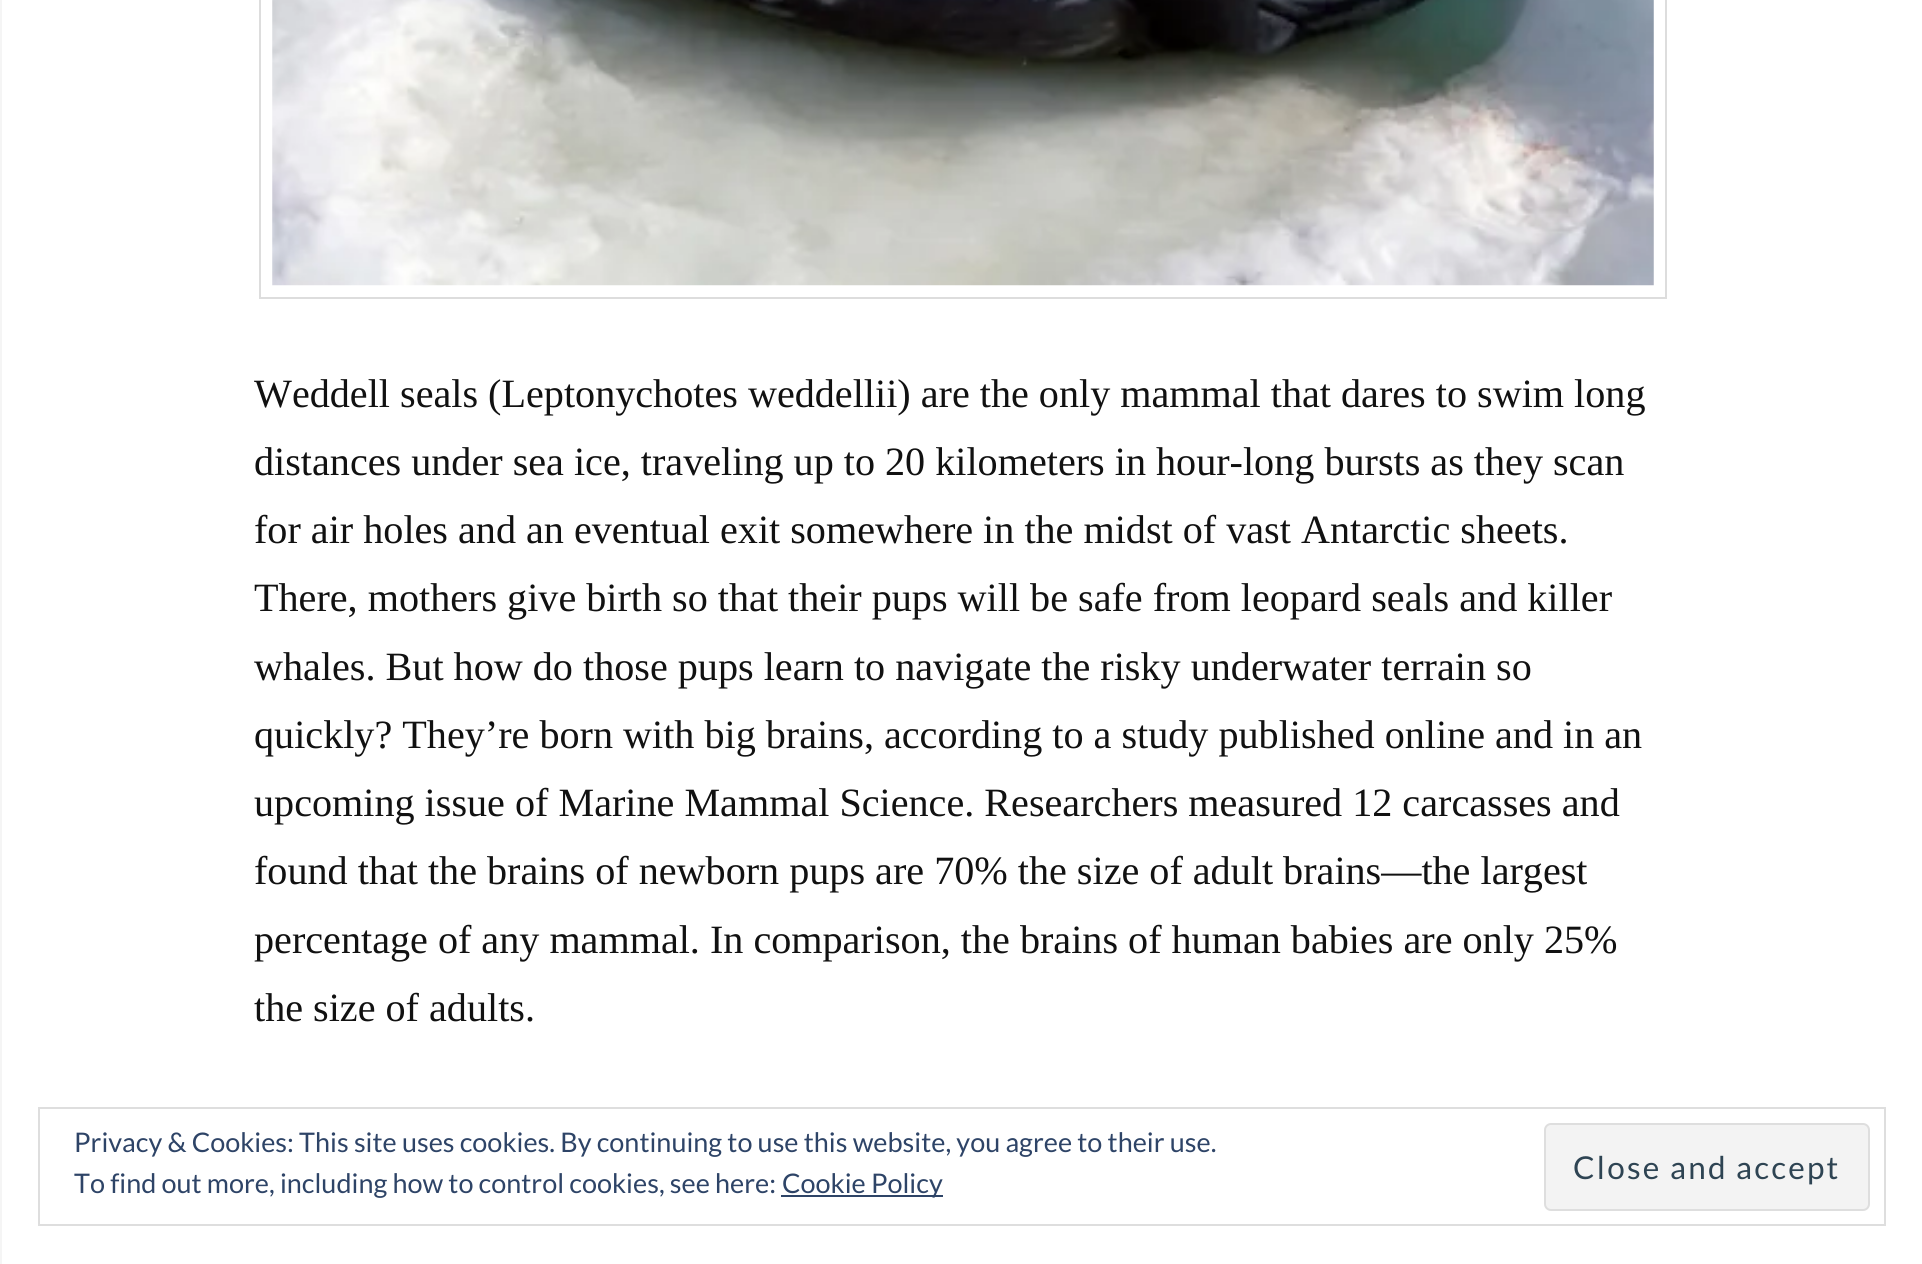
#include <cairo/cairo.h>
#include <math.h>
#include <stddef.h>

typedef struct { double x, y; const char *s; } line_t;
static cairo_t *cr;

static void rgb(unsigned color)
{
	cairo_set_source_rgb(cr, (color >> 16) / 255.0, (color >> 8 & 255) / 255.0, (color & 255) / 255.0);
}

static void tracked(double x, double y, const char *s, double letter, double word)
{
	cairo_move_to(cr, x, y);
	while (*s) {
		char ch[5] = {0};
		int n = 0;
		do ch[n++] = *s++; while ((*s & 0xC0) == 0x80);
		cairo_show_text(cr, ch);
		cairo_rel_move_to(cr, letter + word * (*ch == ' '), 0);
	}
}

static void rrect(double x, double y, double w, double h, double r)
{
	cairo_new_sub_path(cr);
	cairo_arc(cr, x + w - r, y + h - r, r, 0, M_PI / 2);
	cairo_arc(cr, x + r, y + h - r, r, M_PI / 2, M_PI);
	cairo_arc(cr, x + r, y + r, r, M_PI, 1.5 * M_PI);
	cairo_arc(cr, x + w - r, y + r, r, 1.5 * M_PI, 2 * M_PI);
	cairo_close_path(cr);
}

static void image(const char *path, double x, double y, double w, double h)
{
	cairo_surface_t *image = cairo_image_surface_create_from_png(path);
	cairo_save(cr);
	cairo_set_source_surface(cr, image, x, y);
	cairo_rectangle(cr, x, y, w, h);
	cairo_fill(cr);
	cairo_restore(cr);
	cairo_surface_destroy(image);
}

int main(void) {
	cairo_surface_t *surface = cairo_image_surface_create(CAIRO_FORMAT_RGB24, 1922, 1264);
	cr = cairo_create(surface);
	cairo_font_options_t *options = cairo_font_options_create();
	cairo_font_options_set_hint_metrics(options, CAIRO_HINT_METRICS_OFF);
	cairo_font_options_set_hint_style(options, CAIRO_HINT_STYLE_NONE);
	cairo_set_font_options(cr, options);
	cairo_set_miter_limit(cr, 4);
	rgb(0xffffff);
	cairo_paint(cr);
	cairo_rectangle(cr, 1, -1, 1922, 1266);
	rgb(0xf5f5f5);
	cairo_stroke(cr);
	cairo_rectangle(cr, 260, -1, 1406, 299);
	rgb(0xdddddd);
	cairo_stroke(cr);
	image("img/1.png", 272, 0, 1382, 286);
	cairo_rectangle(cr, 39, 1108, 1846, 117);
	rgb(0xdedede);
	cairo_stroke(cr);
	rgb(0x2e4467);
	cairo_rectangle(cr, 781, 1195, 162, 2);
	cairo_fill(cr);
	rgb(0xf3f3f3);
	rrect(1545, 1124, 324, 86, 6);
	cairo_fill_preserve(cr);
	rgb(0xdedede);
	cairo_stroke(cr);
	cairo_select_font_face(cr, "Liberation Serif", CAIRO_FONT_SLANT_NORMAL, CAIRO_FONT_WEIGHT_NORMAL);
	cairo_set_font_size(cr, 40.15);
	rgb(0x111111);
	{
		static const line_t items[] = {
			{254, 407, "Weddell seals (Leptonychotes weddellii) are the only mammal that dares to swim long"},
			{254, 475, "distances under sea ice, traveling up to 20 kilometers in hour-long bursts as they scan"},
			{254, 543, "for air holes and an eventual exit somewhere in the midst of vast Antarctic sheets."},
			{254, 611, "There, mothers give birth so that their pups will be safe from leopard seals and killer"},
			{254, 680, "whales. But how do those pups learn to navigate the risky underwater terrain so"},
			{254, 748, "quickly? They’re born with big brains, according to a study published online and in an"},
			{254, 816, "upcoming issue of Marine Mammal Science. Researchers measured 12 carcasses and"},
			{254, 884, "found that the brains of newborn pups are 70% the size of adult brains—the largest"},
			{254, 953, "percentage of any mammal. In comparison, the brains of human babies are only 25%"},
			{254, 1021, "the size of adults."},
		};
		for (size_t i = 0; i < sizeof items / sizeof *items; i++) {
			cairo_move_to(cr, items[i].x, items[i].y);
			cairo_show_text(cr, items[i].s);
		}
	}
	cairo_select_font_face(cr, "Lato", CAIRO_FONT_SLANT_NORMAL, CAIRO_FONT_WEIGHT_NORMAL);
	cairo_set_font_size(cr, 27);
	rgb(0x2e4467);
	{
		static const line_t items[] = {
			{74, 1152, "Privacy & Cookies: This site uses cookies. By continuing to use this website, you agree to their use."},
			{74, 1193, "To find out more, including how to control cookies, see here:"},
			{782, 1193, "Cookie Policy"},
		};
		for (size_t i = 0; i < sizeof items / sizeof *items; i++) {
			cairo_move_to(cr, items[i].x, items[i].y);
			cairo_show_text(cr, items[i].s);
		}
	}
	cairo_set_font_size(cr, 31.5);
	rgb(0x2e4453);
	tracked(1573, 1179, "Close and accept", 2.25, 0);
	cairo_surface_write_to_png(surface, "page.png");
	cairo_font_options_destroy(options);
	cairo_destroy(cr);
	cairo_surface_destroy(surface);
	return 0;
}
